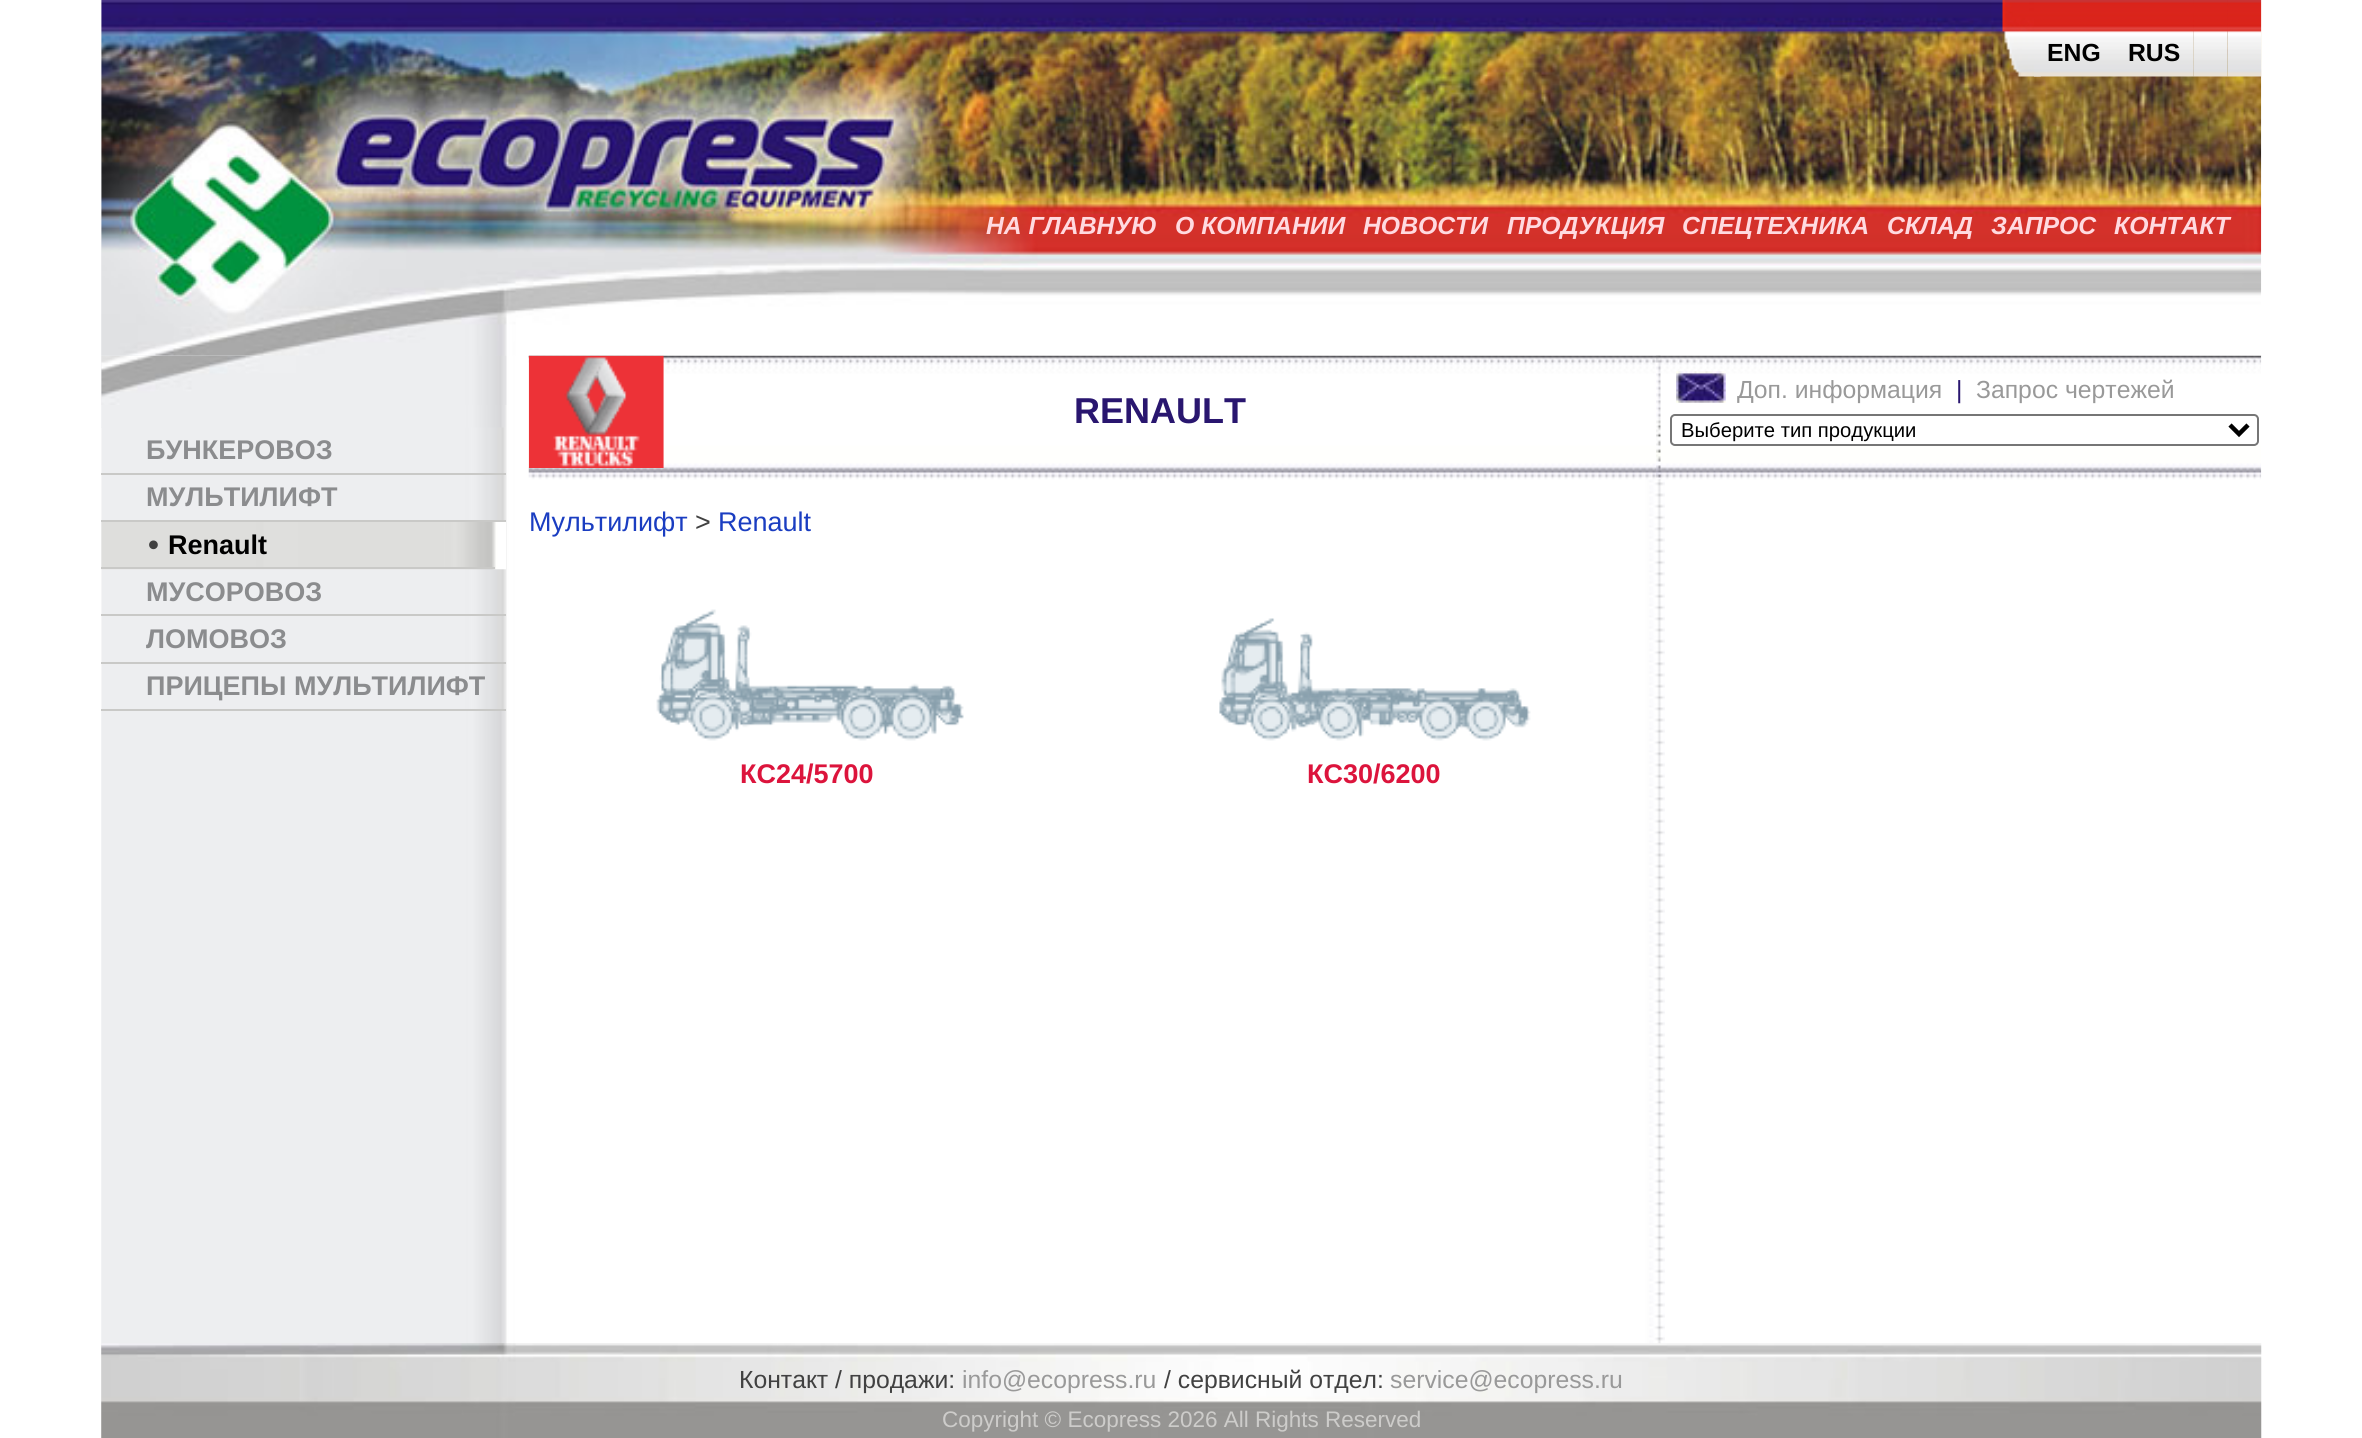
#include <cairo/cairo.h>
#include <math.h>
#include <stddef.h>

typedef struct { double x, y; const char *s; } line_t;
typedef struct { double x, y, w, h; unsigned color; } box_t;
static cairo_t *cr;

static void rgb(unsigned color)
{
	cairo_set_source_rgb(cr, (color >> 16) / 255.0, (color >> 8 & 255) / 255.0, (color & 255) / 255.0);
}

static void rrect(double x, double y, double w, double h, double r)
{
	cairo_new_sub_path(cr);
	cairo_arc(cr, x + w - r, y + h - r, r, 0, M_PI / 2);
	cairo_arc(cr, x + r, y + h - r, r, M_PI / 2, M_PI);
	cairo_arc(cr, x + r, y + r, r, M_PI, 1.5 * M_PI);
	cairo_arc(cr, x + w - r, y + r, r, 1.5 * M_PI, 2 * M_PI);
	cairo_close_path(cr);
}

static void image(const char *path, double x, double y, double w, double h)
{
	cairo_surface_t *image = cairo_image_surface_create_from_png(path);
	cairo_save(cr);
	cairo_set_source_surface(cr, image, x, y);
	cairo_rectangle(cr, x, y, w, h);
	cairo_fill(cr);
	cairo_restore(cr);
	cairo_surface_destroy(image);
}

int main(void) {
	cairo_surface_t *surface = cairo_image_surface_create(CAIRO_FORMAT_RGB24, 2362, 1438);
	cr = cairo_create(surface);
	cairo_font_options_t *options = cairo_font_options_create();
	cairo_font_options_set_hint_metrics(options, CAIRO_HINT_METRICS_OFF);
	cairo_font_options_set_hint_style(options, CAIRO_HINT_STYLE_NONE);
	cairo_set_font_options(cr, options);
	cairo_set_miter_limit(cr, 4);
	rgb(0xffffff);
	cairo_paint(cr);
	image("img/1.png", 101, 0, 1564, 1438);
	image("img/8.png", 101, 355, 406, 50);
	image("img/11.png", 528, 355, 1734, 125);
	image("img/12.png", 528, 355, 136, 113);
	image("img/13.png", 1656, 355, 5, 124);
	image("img/2.png", 101, 0, 2161, 356);
	image("img/3.png", 2002, 0, 39, 77);
	image("img/4.png", 2034, 0, 81, 77);
	image("img/5.png", 2115, 0, 79, 77);
	image("img/6.png", 2193, 0, 35, 77);
	image("img/7.png", 2227, 0, 35, 77);
	rgb(0xffffff);
	cairo_rectangle(cr, 101, 428, 1, 281);
	cairo_fill(cr);
	image("img/9.png", 101, 427, 405, 282);
	rgb(0xc9c9c7);
	cairo_rectangle(cr, 101, 473, 405, 2);
	cairo_fill(cr);
	cairo_rectangle(cr, 101, 520, 405, 2);
	cairo_fill(cr);
	image("img/10.png", 101, 522, 405, 48);
	{
		static const box_t items[] = {
			{101, 567, 394, 2, 0xc9c9c7},
			{101, 614, 405, 2, 0xc9c9c7},
			{101, 662, 405, 2, 0xc9c9c7},
			{101, 709, 405, 2, 0xc9c9c7},
		};
		for (size_t i = 0; i < sizeof items / sizeof *items; i++) {
			rgb(items[i].color);
			cairo_rectangle(cr, items[i].x, items[i].y, items[i].w, items[i].h);
			cairo_fill(cr);
		}
	}
	image("img/14.png", 1676, 371, 50, 32);
	rrect(1671, 415, 587, 30, 4);
	rgb(0x767676);
	cairo_stroke(cr);
	cairo_new_path(cr);
	cairo_move_to(cr, 2230, 425);
	cairo_line_to(cr, 2239, 434);
	cairo_line_to(cr, 2248, 425);
	rgb(0x000000);
	cairo_set_line_width(cr, 4.5);
	cairo_stroke(cr);
	image("img/15.png", 656, 609, 308, 132);
	image("img/16.png", 1219, 618, 312, 123);
	image("img/17.png", 101, 1343, 2161, 95);
	cairo_select_font_face(cr, "Liberation Sans", CAIRO_FONT_SLANT_NORMAL, CAIRO_FONT_WEIGHT_BOLD);
	cairo_set_font_size(cr, 24.75);
	cairo_move_to(cr, 2047, 61);
	cairo_show_text(cr, "ENG");
	cairo_move_to(cr, 2128, 61);
	cairo_show_text(cr, "RUS");
	cairo_select_font_face(cr, "Liberation Sans", CAIRO_FONT_SLANT_ITALIC, CAIRO_FONT_WEIGHT_BOLD);
	rgb(0xffdae0);
	{
		static const line_t items[] = {
			{986, 234, "НА ГЛАВНУЮ"},
			{1175, 234, "О КОМПАНИИ"},
			{1363, 234, "НОВОСТИ"},
			{1507, 234, "ПРОДУКЦИЯ"},
			{1682, 234, "СПЕЦТЕХНИКА"},
			{1887, 234, "СКЛАД"},
			{1991, 234, "ЗАПРОС"},
			{2114, 234, "КОНТАКТ"},
		};
		for (size_t i = 0; i < sizeof items / sizeof *items; i++) {
			cairo_move_to(cr, items[i].x, items[i].y);
			cairo_show_text(cr, items[i].s);
		}
	}
	cairo_select_font_face(cr, "Liberation Sans", CAIRO_FONT_SLANT_NORMAL, CAIRO_FONT_WEIGHT_BOLD);
	cairo_set_font_size(cr, 27);
	rgb(0x8b8c8e);
	cairo_move_to(cr, 146, 459);
	cairo_show_text(cr, "БУНКЕРОВОЗ");
	cairo_move_to(cr, 146, 506);
	cairo_show_text(cr, "МУЛЬТИЛИФТ");
	cairo_select_font_face(cr, "DejaVu Sans Mono", CAIRO_FONT_SLANT_NORMAL, CAIRO_FONT_WEIGHT_BOLD);
	cairo_set_font_size(cr, 24.75);
	rgb(0x414141);
	cairo_move_to(cr, 146, 554);
	cairo_show_text(cr, "•");
	cairo_select_font_face(cr, "Liberation Sans", CAIRO_FONT_SLANT_NORMAL, CAIRO_FONT_WEIGHT_BOLD);
	cairo_set_font_size(cr, 27);
	rgb(0x000000);
	cairo_move_to(cr, 168, 554);
	cairo_show_text(cr, "Renault");
	rgb(0x8b8c8e);
	{
		static const line_t items[] = {
			{146, 601, "МУСОРОВОЗ"},
			{146, 648, "ЛОМОВОЗ"},
			{146, 695, "ПРИЦЕПЫ МУЛЬТИЛИФТ"},
		};
		for (size_t i = 0; i < sizeof items / sizeof *items; i++) {
			cairo_move_to(cr, items[i].x, items[i].y);
			cairo_show_text(cr, items[i].s);
		}
	}
	cairo_set_font_size(cr, 36);
	rgb(0x29166f);
	cairo_move_to(cr, 1074, 423);
	cairo_show_text(cr, "RENAULT");
	cairo_select_font_face(cr, "Liberation Sans", CAIRO_FONT_SLANT_NORMAL, CAIRO_FONT_WEIGHT_NORMAL);
	cairo_set_font_size(cr, 24.75);
	rgb(0x999999);
	cairo_move_to(cr, 1737, 398);
	cairo_show_text(cr, "Доп. информация");
	rgb(0x29166f);
	cairo_move_to(cr, 1956, 398);
	cairo_show_text(cr, "|");
	rgb(0x999999);
	cairo_move_to(cr, 1976, 398);
	cairo_show_text(cr, "Запрос чертежей");
	cairo_set_font_size(cr, 20.25);
	rgb(0x000000);
	cairo_move_to(cr, 1681, 437);
	cairo_show_text(cr, "Выберите тип продукции");
	cairo_set_font_size(cr, 27);
	rgb(0x1a3dc1);
	cairo_move_to(cr, 529, 531);
	cairo_show_text(cr, "Мультилифт");
	rgb(0x414141);
	cairo_move_to(cr, 695, 531);
	cairo_show_text(cr, ">");
	rgb(0x1a3dc1);
	cairo_move_to(cr, 718, 531);
	cairo_show_text(cr, "Renault");
	cairo_select_font_face(cr, "Liberation Sans", CAIRO_FONT_SLANT_NORMAL, CAIRO_FONT_WEIGHT_BOLD);
	rgb(0xdc143c);
	cairo_move_to(cr, 740, 783);
	cairo_show_text(cr, "КС24/5700");
	cairo_move_to(cr, 1307, 783);
	cairo_show_text(cr, "КС30/6200");
	cairo_select_font_face(cr, "Liberation Sans", CAIRO_FONT_SLANT_NORMAL, CAIRO_FONT_WEIGHT_NORMAL);
	cairo_set_font_size(cr, 24.75);
	rgb(0x414141);
	cairo_move_to(cr, 739, 1388);
	cairo_show_text(cr, "Контакт / продажи:");
	rgb(0x999999);
	cairo_move_to(cr, 962, 1388);
	cairo_show_text(cr, "info@ecopress.ru");
	rgb(0x414141);
	cairo_move_to(cr, 1164, 1388);
	cairo_show_text(cr, "/ сервисный отдел:");
	rgb(0x999999);
	cairo_move_to(cr, 1390, 1388);
	cairo_show_text(cr, "service@ecopress.ru");
	cairo_set_font_size(cr, 22.5);
	rgb(0xcdccca);
	cairo_move_to(cr, 942, 1427);
	cairo_show_text(cr, "Copyright © Ecopress 2026 All Rights Reserved");
	cairo_surface_write_to_png(surface, "page.png");
	cairo_font_options_destroy(options);
	cairo_destroy(cr);
	cairo_surface_destroy(surface);
	return 0;
}
